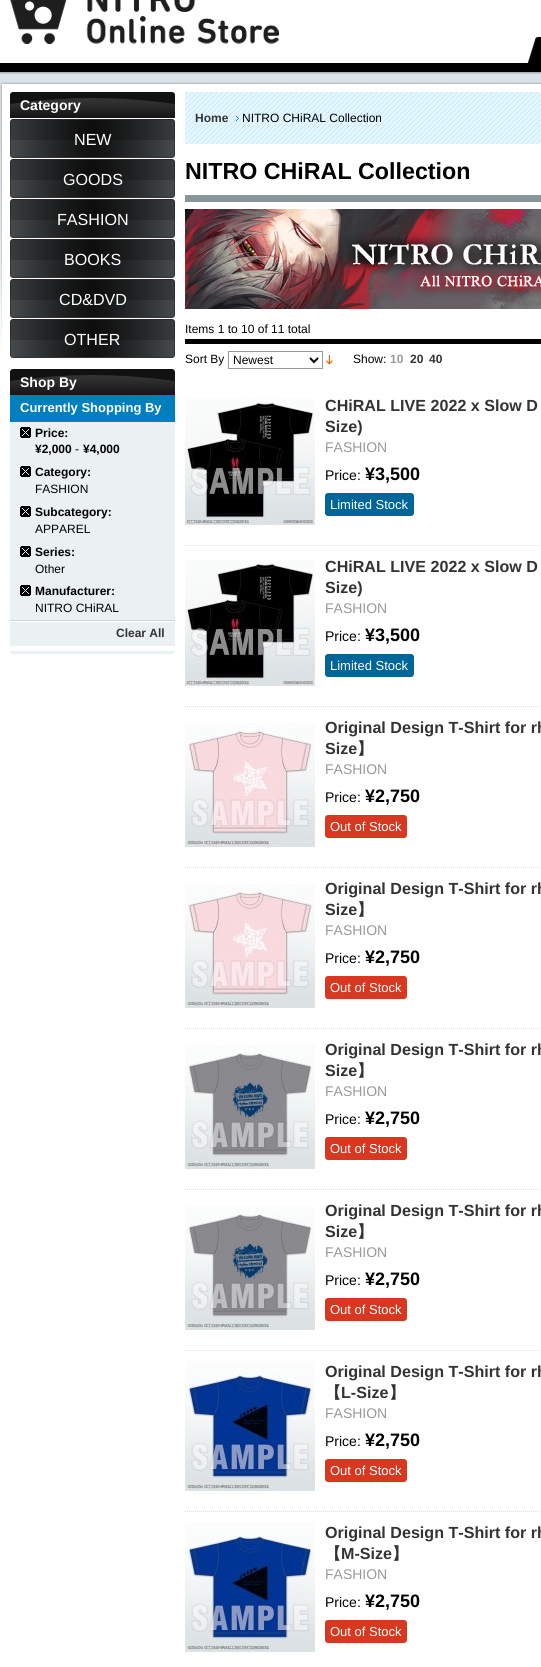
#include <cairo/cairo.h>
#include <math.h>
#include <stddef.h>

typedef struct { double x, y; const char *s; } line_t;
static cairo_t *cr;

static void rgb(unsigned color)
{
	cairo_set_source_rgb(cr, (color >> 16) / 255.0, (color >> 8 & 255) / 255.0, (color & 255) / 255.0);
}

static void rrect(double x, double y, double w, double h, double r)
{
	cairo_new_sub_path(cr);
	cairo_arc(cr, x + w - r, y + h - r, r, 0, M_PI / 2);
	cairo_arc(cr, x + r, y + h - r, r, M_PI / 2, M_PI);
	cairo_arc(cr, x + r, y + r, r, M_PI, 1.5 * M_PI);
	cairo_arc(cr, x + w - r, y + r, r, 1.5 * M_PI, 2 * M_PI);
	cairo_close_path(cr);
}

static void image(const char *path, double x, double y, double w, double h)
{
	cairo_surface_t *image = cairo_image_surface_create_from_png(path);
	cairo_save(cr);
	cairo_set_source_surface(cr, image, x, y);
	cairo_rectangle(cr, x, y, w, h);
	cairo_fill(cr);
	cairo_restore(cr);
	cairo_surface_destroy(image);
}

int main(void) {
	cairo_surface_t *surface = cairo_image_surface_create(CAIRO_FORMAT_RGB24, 541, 1667);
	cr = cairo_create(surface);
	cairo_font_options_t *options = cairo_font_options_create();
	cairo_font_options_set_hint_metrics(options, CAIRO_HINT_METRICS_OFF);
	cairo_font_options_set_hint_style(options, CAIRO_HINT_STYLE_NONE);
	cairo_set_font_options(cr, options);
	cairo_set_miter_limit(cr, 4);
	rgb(0xffffff);
	cairo_paint(cr);
	rgb(0x000000);
	cairo_rectangle(cr, 0, 63, 541, 9);
	cairo_fill(cr);
	image("img/1.png", 10, 0, 269, 44);
	image("img/2.png", 527, 37, 14, 26);
	image("img/3.png", 0, 72, 541, 10);
	image("img/4.png", 0, 82, 541, 271);
	image("img/5.png", 10, 92, 165, 26);
	image("img/6.png", 10, 119, 165, 40);
	image("img/6.png", 10, 159, 165, 40);
	image("img/6.png", 10, 199, 165, 40);
	image("img/6.png", 10, 239, 165, 40);
	image("img/6.png", 10, 279, 165, 40);
	image("img/6.png", 10, 319, 165, 40);
	image("img/5.png", 10, 369, 165, 26);
	rgb(0xebf0f2);
	cairo_new_path(cr);
	cairo_move_to(cr, 10, 395);
	cairo_line_to(cr, 175, 395);
	cairo_line_to(cr, 175, 651);
	cairo_curve_to(cr, 175, 652.5, 173.5, 654, 172, 654);
	cairo_line_to(cr, 13, 654);
	cairo_curve_to(cr, 11.5, 654, 10, 652.5, 10, 651);
	cairo_close_path(cr);
	cairo_fill(cr);
	rgb(0x007fbf);
	cairo_rectangle(cr, 10, 395, 165, 27);
	cairo_fill(cr);
	image("img/7.png", 20, 427, 11, 11);
	image("img/7.png", 20, 466, 11, 11);
	image("img/7.png", 20, 506, 11, 11);
	image("img/7.png", 20, 546, 11, 11);
	image("img/7.png", 20, 585, 11, 11);
	image("img/8.png", 10, 620, 165, 2);
	rgb(0xffffff);
	cairo_rectangle(cr, 10, 646, 165, 5);
	cairo_fill(cr);
	image("img/9.png", 185, 92, 356, 52);
	image("img/10.png", 236, 116, 3, 5);
	rgb(0x8a9599);
	cairo_rectangle(cr, 185, 195, 356, 7);
	cairo_fill(cr);
	image("img/11.png", 185, 209, 356, 100);
	rgb(0x000000);
	cairo_rectangle(cr, 185, 339, 356, 5);
	cairo_fill(cr);
	cairo_rectangle(cr, 228.5, 351.5, 94, 17);
	rgb(0x999999);
	cairo_set_line_width(cr, 1);
	cairo_stroke(cr);
	cairo_new_path(cr);
	cairo_move_to(cr, 310, 358);
	cairo_line_to(cr, 314, 362);
	cairo_line_to(cr, 318, 358);
	rgb(0x000000);
	cairo_set_line_width(cr, 2);
	cairo_stroke(cr);
	image("img/12.png", 326, 355, 7, 10);
	cairo_new_path(cr);
	cairo_move_to(cr, 185, 545.5);
	cairo_line_to(cr, 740, 545.5);
	rgb(0xdddddd);
	cairo_set_line_width(cr, 1);
	cairo_set_dash(cr, (double[]){1, 1}, 2, 0);
	cairo_stroke(cr);
	image("img/13.png", 185, 399, 130, 126);
	rgb(0x006699);
	rrect(325, 493, 89, 23, 3);
	cairo_fill(cr);
	cairo_new_path(cr);
	cairo_move_to(cr, 185, 706.5);
	cairo_line_to(cr, 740, 706.5);
	rgb(0xdddddd);
	cairo_stroke(cr);
	image("img/13.png", 185, 560, 130, 126);
	rgb(0x006699);
	rrect(325, 654, 89, 23, 3);
	cairo_fill(cr);
	cairo_new_path(cr);
	cairo_move_to(cr, 185, 867.5);
	cairo_line_to(cr, 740, 867.5);
	rgb(0xdddddd);
	cairo_stroke(cr);
	image("img/14.png", 185, 723, 130, 124);
	rgb(0xd83820);
	rrect(325, 815, 82, 23, 3);
	cairo_fill(cr);
	cairo_new_path(cr);
	cairo_move_to(cr, 185, 1028.5);
	cairo_line_to(cr, 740, 1028.5);
	rgb(0xdddddd);
	cairo_stroke(cr);
	image("img/14.png", 185, 884, 130, 124);
	rgb(0xd83820);
	rrect(325, 976, 82, 23, 3);
	cairo_fill(cr);
	cairo_new_path(cr);
	cairo_move_to(cr, 185, 1189.5);
	cairo_line_to(cr, 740, 1189.5);
	rgb(0xdddddd);
	cairo_stroke(cr);
	image("img/15.png", 185, 1045, 130, 124);
	rgb(0xd83820);
	rrect(325, 1137, 82, 23, 3);
	cairo_fill(cr);
	cairo_new_path(cr);
	cairo_move_to(cr, 185, 1350.5);
	cairo_line_to(cr, 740, 1350.5);
	rgb(0xdddddd);
	cairo_stroke(cr);
	image("img/15.png", 185, 1206, 130, 124);
	rgb(0xd83820);
	rrect(325, 1298, 82, 23, 3);
	cairo_fill(cr);
	cairo_new_path(cr);
	cairo_move_to(cr, 185, 1511.5);
	cairo_line_to(cr, 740, 1511.5);
	rgb(0xdddddd);
	cairo_stroke(cr);
	image("img/16.png", 185, 1361, 130, 130);
	rgb(0xd83820);
	rrect(325, 1459, 82, 23, 3);
	cairo_fill(cr);
	image("img/16.png", 185, 1522, 130, 130);
	rrect(325, 1620, 82, 23, 3);
	cairo_fill(cr);
	cairo_select_font_face(cr, "Liberation Sans", CAIRO_FONT_SLANT_NORMAL, CAIRO_FONT_WEIGHT_BOLD);
	cairo_set_font_size(cr, 14);
	rgb(0xffffff);
	cairo_move_to(cr, 20, 110);
	cairo_show_text(cr, "Category");
	cairo_select_font_face(cr, "Liberation Sans", CAIRO_FONT_SLANT_NORMAL, CAIRO_FONT_WEIGHT_NORMAL);
	cairo_set_font_size(cr, 16.1);
	{
		static const line_t items[] = {
			{74, 145, "NEW"},
			{63, 185, "GOODS"},
			{57, 225, "FASHION"},
			{64, 265, "BOOKS"},
			{59, 305, "CD&DVD"},
			{64, 345, "OTHER"},
		};
		for (size_t i = 0; i < sizeof items / sizeof *items; i++) {
			cairo_move_to(cr, items[i].x, items[i].y);
			cairo_show_text(cr, items[i].s);
		}
	}
	cairo_select_font_face(cr, "Liberation Sans", CAIRO_FONT_SLANT_NORMAL, CAIRO_FONT_WEIGHT_BOLD);
	cairo_set_font_size(cr, 14);
	cairo_move_to(cr, 20, 387);
	cairo_show_text(cr, "Shop By");
	cairo_set_font_size(cr, 13);
	cairo_move_to(cr, 20, 412);
	cairo_show_text(cr, "Currently Shopping By");
	cairo_set_font_size(cr, 12);
	rgb(0x000000);
	cairo_move_to(cr, 35, 437);
	cairo_show_text(cr, "Price:");
	cairo_move_to(cr, 35, 453);
	cairo_show_text(cr, "¥2,000");
	cairo_select_font_face(cr, "Liberation Sans", CAIRO_FONT_SLANT_NORMAL, CAIRO_FONT_WEIGHT_NORMAL);
	cairo_move_to(cr, 75, 453);
	cairo_show_text(cr, "-");
	cairo_select_font_face(cr, "Liberation Sans", CAIRO_FONT_SLANT_NORMAL, CAIRO_FONT_WEIGHT_BOLD);
	cairo_move_to(cr, 83, 453);
	cairo_show_text(cr, "¥4,000");
	cairo_move_to(cr, 35, 476);
	cairo_show_text(cr, "Category:");
	cairo_select_font_face(cr, "Liberation Sans", CAIRO_FONT_SLANT_NORMAL, CAIRO_FONT_WEIGHT_NORMAL);
	cairo_move_to(cr, 35, 493);
	cairo_show_text(cr, "FASHION");
	cairo_select_font_face(cr, "Liberation Sans", CAIRO_FONT_SLANT_NORMAL, CAIRO_FONT_WEIGHT_BOLD);
	cairo_move_to(cr, 35, 516);
	cairo_show_text(cr, "Subcategory:");
	cairo_select_font_face(cr, "Liberation Sans", CAIRO_FONT_SLANT_NORMAL, CAIRO_FONT_WEIGHT_NORMAL);
	cairo_move_to(cr, 35, 533);
	cairo_show_text(cr, "APPAREL");
	cairo_select_font_face(cr, "Liberation Sans", CAIRO_FONT_SLANT_NORMAL, CAIRO_FONT_WEIGHT_BOLD);
	cairo_move_to(cr, 35, 556);
	cairo_show_text(cr, "Series:");
	cairo_select_font_face(cr, "Liberation Sans", CAIRO_FONT_SLANT_NORMAL, CAIRO_FONT_WEIGHT_NORMAL);
	cairo_move_to(cr, 35, 573);
	cairo_show_text(cr, "Other");
	cairo_select_font_face(cr, "Liberation Sans", CAIRO_FONT_SLANT_NORMAL, CAIRO_FONT_WEIGHT_BOLD);
	cairo_move_to(cr, 35, 595);
	cairo_show_text(cr, "Manufacturer:");
	cairo_select_font_face(cr, "Liberation Sans", CAIRO_FONT_SLANT_NORMAL, CAIRO_FONT_WEIGHT_NORMAL);
	cairo_move_to(cr, 35, 612);
	cairo_show_text(cr, "NITRO CHiRAL");
	cairo_select_font_face(cr, "Liberation Sans", CAIRO_FONT_SLANT_NORMAL, CAIRO_FONT_WEIGHT_BOLD);
	rgb(0x333333);
	cairo_move_to(cr, 116, 637);
	cairo_show_text(cr, "Clear All");
	cairo_move_to(cr, 195, 122);
	cairo_show_text(cr, "Home");
	cairo_select_font_face(cr, "Liberation Sans", CAIRO_FONT_SLANT_NORMAL, CAIRO_FONT_WEIGHT_NORMAL);
	rgb(0x000000);
	cairo_move_to(cr, 242, 122);
	cairo_show_text(cr, "NITRO CHiRAL Collection");
	cairo_select_font_face(cr, "Liberation Sans", CAIRO_FONT_SLANT_NORMAL, CAIRO_FONT_WEIGHT_BOLD);
	cairo_set_font_size(cr, 23.25);
	cairo_move_to(cr, 185, 179);
	cairo_show_text(cr, "NITRO CHiRAL Collection");
	cairo_select_font_face(cr, "Liberation Sans", CAIRO_FONT_SLANT_NORMAL, CAIRO_FONT_WEIGHT_NORMAL);
	cairo_set_font_size(cr, 12);
	{
		static const line_t items[] = {
			{185, 333, "Items 1 to 10 of 11 total"},
			{185, 363, "Sort By"},
			{233, 364, "Newest"},
			{353, 363, "Show:"},
		};
		for (size_t i = 0; i < sizeof items / sizeof *items; i++) {
			cairo_move_to(cr, items[i].x, items[i].y);
			cairo_show_text(cr, items[i].s);
		}
	}
	cairo_select_font_face(cr, "Liberation Sans", CAIRO_FONT_SLANT_NORMAL, CAIRO_FONT_WEIGHT_BOLD);
	rgb(0x999999);
	cairo_move_to(cr, 390, 363);
	cairo_show_text(cr, "10");
	rgb(0x333333);
	cairo_move_to(cr, 410, 363);
	cairo_show_text(cr, "20");
	cairo_move_to(cr, 429, 363);
	cairo_show_text(cr, "40");
	cairo_set_font_size(cr, 16.1);
	cairo_move_to(cr, 325, 411);
	cairo_show_text(cr, "CHiRAL LIVE 2022 x Slow D");
	cairo_move_to(cr, 325, 432);
	cairo_show_text(cr, "Size)");
	cairo_select_font_face(cr, "Liberation Sans", CAIRO_FONT_SLANT_NORMAL, CAIRO_FONT_WEIGHT_NORMAL);
	cairo_set_font_size(cr, 14);
	rgb(0x999999);
	cairo_move_to(cr, 325, 452);
	cairo_show_text(cr, "FASHION");
	rgb(0x000000);
	cairo_move_to(cr, 325, 480);
	cairo_show_text(cr, "Price:");
	cairo_select_font_face(cr, "Liberation Sans", CAIRO_FONT_SLANT_NORMAL, CAIRO_FONT_WEIGHT_BOLD);
	cairo_set_font_size(cr, 18);
	cairo_move_to(cr, 365, 480);
	cairo_show_text(cr, "¥3,500");
	cairo_select_font_face(cr, "Liberation Sans", CAIRO_FONT_SLANT_NORMAL, CAIRO_FONT_WEIGHT_NORMAL);
	cairo_set_font_size(cr, 13);
	rgb(0xffffff);
	cairo_move_to(cr, 330, 509);
	cairo_show_text(cr, "Limited Stock");
	cairo_select_font_face(cr, "Liberation Sans", CAIRO_FONT_SLANT_NORMAL, CAIRO_FONT_WEIGHT_BOLD);
	cairo_set_font_size(cr, 16.1);
	rgb(0x333333);
	cairo_move_to(cr, 325, 572);
	cairo_show_text(cr, "CHiRAL LIVE 2022 x Slow D");
	cairo_move_to(cr, 325, 593);
	cairo_show_text(cr, "Size)");
	cairo_select_font_face(cr, "Liberation Sans", CAIRO_FONT_SLANT_NORMAL, CAIRO_FONT_WEIGHT_NORMAL);
	cairo_set_font_size(cr, 14);
	rgb(0x999999);
	cairo_move_to(cr, 325, 613);
	cairo_show_text(cr, "FASHION");
	rgb(0x000000);
	cairo_move_to(cr, 325, 641);
	cairo_show_text(cr, "Price:");
	cairo_select_font_face(cr, "Liberation Sans", CAIRO_FONT_SLANT_NORMAL, CAIRO_FONT_WEIGHT_BOLD);
	cairo_set_font_size(cr, 18);
	cairo_move_to(cr, 365, 641);
	cairo_show_text(cr, "¥3,500");
	cairo_select_font_face(cr, "Liberation Sans", CAIRO_FONT_SLANT_NORMAL, CAIRO_FONT_WEIGHT_NORMAL);
	cairo_set_font_size(cr, 13);
	rgb(0xffffff);
	cairo_move_to(cr, 330, 670);
	cairo_show_text(cr, "Limited Stock");
	cairo_select_font_face(cr, "Liberation Sans", CAIRO_FONT_SLANT_NORMAL, CAIRO_FONT_WEIGHT_BOLD);
	cairo_set_font_size(cr, 16.1);
	rgb(0x333333);
	cairo_move_to(cr, 325, 733);
	cairo_show_text(cr, "Original Design T-Shirt for rh");
	cairo_move_to(cr, 325, 754);
	cairo_show_text(cr, "Size");
	cairo_select_font_face(cr, "WenQuanYi Zen Hei", CAIRO_FONT_SLANT_NORMAL, CAIRO_FONT_WEIGHT_BOLD);
	cairo_move_to(cr, 357, 754);
	cairo_show_text(cr, "】");
	cairo_select_font_face(cr, "Liberation Sans", CAIRO_FONT_SLANT_NORMAL, CAIRO_FONT_WEIGHT_NORMAL);
	cairo_set_font_size(cr, 14);
	rgb(0x999999);
	cairo_move_to(cr, 325, 774);
	cairo_show_text(cr, "FASHION");
	rgb(0x000000);
	cairo_move_to(cr, 325, 802);
	cairo_show_text(cr, "Price:");
	cairo_select_font_face(cr, "Liberation Sans", CAIRO_FONT_SLANT_NORMAL, CAIRO_FONT_WEIGHT_BOLD);
	cairo_set_font_size(cr, 18);
	cairo_move_to(cr, 365, 802);
	cairo_show_text(cr, "¥2,750");
	cairo_select_font_face(cr, "Liberation Sans", CAIRO_FONT_SLANT_NORMAL, CAIRO_FONT_WEIGHT_NORMAL);
	cairo_set_font_size(cr, 13);
	rgb(0xffffff);
	cairo_move_to(cr, 330, 831);
	cairo_show_text(cr, "Out of Stock");
	cairo_select_font_face(cr, "Liberation Sans", CAIRO_FONT_SLANT_NORMAL, CAIRO_FONT_WEIGHT_BOLD);
	cairo_set_font_size(cr, 16.1);
	rgb(0x333333);
	cairo_move_to(cr, 325, 894);
	cairo_show_text(cr, "Original Design T-Shirt for rh");
	cairo_move_to(cr, 325, 915);
	cairo_show_text(cr, "Size");
	cairo_select_font_face(cr, "WenQuanYi Zen Hei", CAIRO_FONT_SLANT_NORMAL, CAIRO_FONT_WEIGHT_BOLD);
	cairo_move_to(cr, 357, 915);
	cairo_show_text(cr, "】");
	cairo_select_font_face(cr, "Liberation Sans", CAIRO_FONT_SLANT_NORMAL, CAIRO_FONT_WEIGHT_NORMAL);
	cairo_set_font_size(cr, 14);
	rgb(0x999999);
	cairo_move_to(cr, 325, 935);
	cairo_show_text(cr, "FASHION");
	rgb(0x000000);
	cairo_move_to(cr, 325, 963);
	cairo_show_text(cr, "Price:");
	cairo_select_font_face(cr, "Liberation Sans", CAIRO_FONT_SLANT_NORMAL, CAIRO_FONT_WEIGHT_BOLD);
	cairo_set_font_size(cr, 18);
	cairo_move_to(cr, 365, 963);
	cairo_show_text(cr, "¥2,750");
	cairo_select_font_face(cr, "Liberation Sans", CAIRO_FONT_SLANT_NORMAL, CAIRO_FONT_WEIGHT_NORMAL);
	cairo_set_font_size(cr, 13);
	rgb(0xffffff);
	cairo_move_to(cr, 330, 992);
	cairo_show_text(cr, "Out of Stock");
	cairo_select_font_face(cr, "Liberation Sans", CAIRO_FONT_SLANT_NORMAL, CAIRO_FONT_WEIGHT_BOLD);
	cairo_set_font_size(cr, 16.1);
	rgb(0x333333);
	cairo_move_to(cr, 325, 1055);
	cairo_show_text(cr, "Original Design T-Shirt for rh");
	cairo_move_to(cr, 325, 1076);
	cairo_show_text(cr, "Size");
	cairo_select_font_face(cr, "WenQuanYi Zen Hei", CAIRO_FONT_SLANT_NORMAL, CAIRO_FONT_WEIGHT_BOLD);
	cairo_move_to(cr, 357, 1076);
	cairo_show_text(cr, "】");
	cairo_select_font_face(cr, "Liberation Sans", CAIRO_FONT_SLANT_NORMAL, CAIRO_FONT_WEIGHT_NORMAL);
	cairo_set_font_size(cr, 14);
	rgb(0x999999);
	cairo_move_to(cr, 325, 1096);
	cairo_show_text(cr, "FASHION");
	rgb(0x000000);
	cairo_move_to(cr, 325, 1124);
	cairo_show_text(cr, "Price:");
	cairo_select_font_face(cr, "Liberation Sans", CAIRO_FONT_SLANT_NORMAL, CAIRO_FONT_WEIGHT_BOLD);
	cairo_set_font_size(cr, 18);
	cairo_move_to(cr, 365, 1124);
	cairo_show_text(cr, "¥2,750");
	cairo_select_font_face(cr, "Liberation Sans", CAIRO_FONT_SLANT_NORMAL, CAIRO_FONT_WEIGHT_NORMAL);
	cairo_set_font_size(cr, 13);
	rgb(0xffffff);
	cairo_move_to(cr, 330, 1153);
	cairo_show_text(cr, "Out of Stock");
	cairo_select_font_face(cr, "Liberation Sans", CAIRO_FONT_SLANT_NORMAL, CAIRO_FONT_WEIGHT_BOLD);
	cairo_set_font_size(cr, 16.1);
	rgb(0x333333);
	cairo_move_to(cr, 325, 1216);
	cairo_show_text(cr, "Original Design T-Shirt for rh");
	cairo_move_to(cr, 325, 1237);
	cairo_show_text(cr, "Size");
	cairo_select_font_face(cr, "WenQuanYi Zen Hei", CAIRO_FONT_SLANT_NORMAL, CAIRO_FONT_WEIGHT_BOLD);
	cairo_move_to(cr, 357, 1237);
	cairo_show_text(cr, "】");
	cairo_select_font_face(cr, "Liberation Sans", CAIRO_FONT_SLANT_NORMAL, CAIRO_FONT_WEIGHT_NORMAL);
	cairo_set_font_size(cr, 14);
	rgb(0x999999);
	cairo_move_to(cr, 325, 1257);
	cairo_show_text(cr, "FASHION");
	rgb(0x000000);
	cairo_move_to(cr, 325, 1285);
	cairo_show_text(cr, "Price:");
	cairo_select_font_face(cr, "Liberation Sans", CAIRO_FONT_SLANT_NORMAL, CAIRO_FONT_WEIGHT_BOLD);
	cairo_set_font_size(cr, 18);
	cairo_move_to(cr, 365, 1285);
	cairo_show_text(cr, "¥2,750");
	cairo_select_font_face(cr, "Liberation Sans", CAIRO_FONT_SLANT_NORMAL, CAIRO_FONT_WEIGHT_NORMAL);
	cairo_set_font_size(cr, 13);
	rgb(0xffffff);
	cairo_move_to(cr, 330, 1314);
	cairo_show_text(cr, "Out of Stock");
	cairo_select_font_face(cr, "Liberation Sans", CAIRO_FONT_SLANT_NORMAL, CAIRO_FONT_WEIGHT_BOLD);
	cairo_set_font_size(cr, 16.1);
	rgb(0x333333);
	cairo_move_to(cr, 325, 1377);
	cairo_show_text(cr, "Original Design T-Shirt for rh");
	cairo_select_font_face(cr, "WenQuanYi Zen Hei", CAIRO_FONT_SLANT_NORMAL, CAIRO_FONT_WEIGHT_BOLD);
	cairo_move_to(cr, 325, 1398);
	cairo_show_text(cr, "【");
	cairo_select_font_face(cr, "Liberation Sans", CAIRO_FONT_SLANT_NORMAL, CAIRO_FONT_WEIGHT_BOLD);
	cairo_move_to(cr, 341, 1398);
	cairo_show_text(cr, "L-Size");
	cairo_select_font_face(cr, "WenQuanYi Zen Hei", CAIRO_FONT_SLANT_NORMAL, CAIRO_FONT_WEIGHT_BOLD);
	cairo_move_to(cr, 389, 1398);
	cairo_show_text(cr, "】");
	cairo_select_font_face(cr, "Liberation Sans", CAIRO_FONT_SLANT_NORMAL, CAIRO_FONT_WEIGHT_NORMAL);
	cairo_set_font_size(cr, 14);
	rgb(0x999999);
	cairo_move_to(cr, 325, 1418);
	cairo_show_text(cr, "FASHION");
	rgb(0x000000);
	cairo_move_to(cr, 325, 1446);
	cairo_show_text(cr, "Price:");
	cairo_select_font_face(cr, "Liberation Sans", CAIRO_FONT_SLANT_NORMAL, CAIRO_FONT_WEIGHT_BOLD);
	cairo_set_font_size(cr, 18);
	cairo_move_to(cr, 365, 1446);
	cairo_show_text(cr, "¥2,750");
	cairo_select_font_face(cr, "Liberation Sans", CAIRO_FONT_SLANT_NORMAL, CAIRO_FONT_WEIGHT_NORMAL);
	cairo_set_font_size(cr, 13);
	rgb(0xffffff);
	cairo_move_to(cr, 330, 1475);
	cairo_show_text(cr, "Out of Stock");
	cairo_select_font_face(cr, "Liberation Sans", CAIRO_FONT_SLANT_NORMAL, CAIRO_FONT_WEIGHT_BOLD);
	cairo_set_font_size(cr, 16.1);
	rgb(0x333333);
	cairo_move_to(cr, 325, 1538);
	cairo_show_text(cr, "Original Design T-Shirt for rh");
	cairo_select_font_face(cr, "WenQuanYi Zen Hei", CAIRO_FONT_SLANT_NORMAL, CAIRO_FONT_WEIGHT_BOLD);
	cairo_move_to(cr, 325, 1559);
	cairo_show_text(cr, "【");
	cairo_select_font_face(cr, "Liberation Sans", CAIRO_FONT_SLANT_NORMAL, CAIRO_FONT_WEIGHT_BOLD);
	cairo_move_to(cr, 341, 1559);
	cairo_show_text(cr, "M-Size");
	cairo_select_font_face(cr, "WenQuanYi Zen Hei", CAIRO_FONT_SLANT_NORMAL, CAIRO_FONT_WEIGHT_BOLD);
	cairo_move_to(cr, 392, 1559);
	cairo_show_text(cr, "】");
	cairo_select_font_face(cr, "Liberation Sans", CAIRO_FONT_SLANT_NORMAL, CAIRO_FONT_WEIGHT_NORMAL);
	cairo_set_font_size(cr, 14);
	rgb(0x999999);
	cairo_move_to(cr, 325, 1579);
	cairo_show_text(cr, "FASHION");
	rgb(0x000000);
	cairo_move_to(cr, 325, 1607);
	cairo_show_text(cr, "Price:");
	cairo_select_font_face(cr, "Liberation Sans", CAIRO_FONT_SLANT_NORMAL, CAIRO_FONT_WEIGHT_BOLD);
	cairo_set_font_size(cr, 18);
	cairo_move_to(cr, 365, 1607);
	cairo_show_text(cr, "¥2,750");
	cairo_select_font_face(cr, "Liberation Sans", CAIRO_FONT_SLANT_NORMAL, CAIRO_FONT_WEIGHT_NORMAL);
	cairo_set_font_size(cr, 13);
	rgb(0xffffff);
	cairo_move_to(cr, 330, 1636);
	cairo_show_text(cr, "Out of Stock");
	cairo_surface_write_to_png(surface, "page.png");
	cairo_font_options_destroy(options);
	cairo_destroy(cr);
	cairo_surface_destroy(surface);
	return 0;
}
